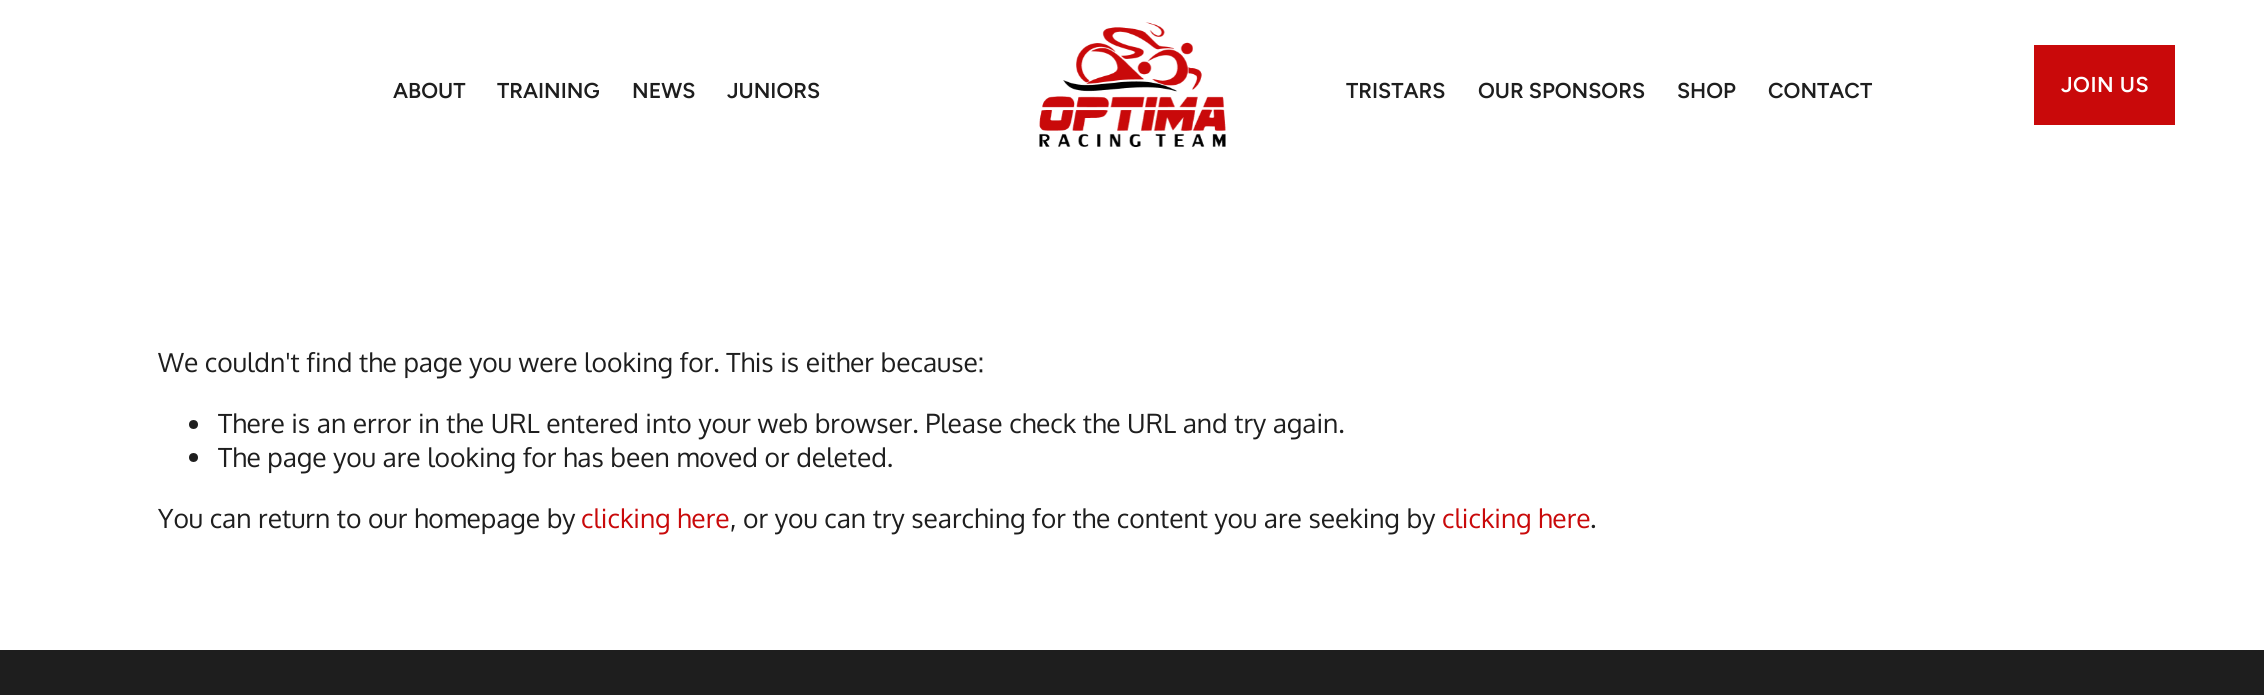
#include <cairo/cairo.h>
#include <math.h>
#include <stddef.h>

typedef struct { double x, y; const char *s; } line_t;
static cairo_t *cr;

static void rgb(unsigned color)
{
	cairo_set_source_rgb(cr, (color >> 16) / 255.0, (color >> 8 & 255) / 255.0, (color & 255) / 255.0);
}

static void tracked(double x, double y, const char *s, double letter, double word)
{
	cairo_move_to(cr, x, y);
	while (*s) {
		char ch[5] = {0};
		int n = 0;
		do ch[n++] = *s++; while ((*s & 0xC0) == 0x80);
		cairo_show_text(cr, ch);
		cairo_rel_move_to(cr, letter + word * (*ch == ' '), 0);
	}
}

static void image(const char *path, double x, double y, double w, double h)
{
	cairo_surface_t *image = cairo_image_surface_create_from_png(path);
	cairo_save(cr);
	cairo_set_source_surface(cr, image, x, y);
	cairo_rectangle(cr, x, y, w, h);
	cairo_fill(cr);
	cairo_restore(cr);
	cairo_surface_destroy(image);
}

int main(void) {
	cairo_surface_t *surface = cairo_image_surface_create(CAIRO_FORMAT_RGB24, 2264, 695);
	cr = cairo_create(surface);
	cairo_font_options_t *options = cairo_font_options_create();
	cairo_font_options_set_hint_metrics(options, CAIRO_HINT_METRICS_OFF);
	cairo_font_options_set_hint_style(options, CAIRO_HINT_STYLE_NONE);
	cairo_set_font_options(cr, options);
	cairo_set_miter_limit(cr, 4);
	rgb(0xffffff);
	cairo_paint(cr);
	image("img/1.png", 1039, 22, 187, 125);
	rgb(0xc9090a);
	cairo_rectangle(cr, 2034, 45, 141, 80);
	cairo_fill(cr);
	rgb(0x1e1e1e);
	cairo_arc(cr, 193.5, 424.5, 4.5, 0, 2 * M_PI);
	cairo_fill(cr);
	cairo_arc(cr, 193.5, 457.5, 4.5, 0, 2 * M_PI);
	cairo_fill(cr);
	cairo_rectangle(cr, 0, 650, 2264, 45);
	cairo_fill(cr);
	cairo_select_font_face(cr, "Figtree SemiBold", CAIRO_FONT_SLANT_NORMAL, CAIRO_FONT_WEIGHT_NORMAL);
	cairo_set_font_size(cr, 21.5);
	{
		static const line_t items[] = {
			{393, 98, "ABOUT"},
			{497, 98, "TRAINING"},
			{632, 98, "NEWS"},
			{727, 98, "JUNIORS"},
			{1346, 98, "TRISTARS"},
			{1478, 98, "OUR SPONSORS"},
			{1677, 98, "SHOP"},
			{1768, 98, "CONTACT"},
		};
		for (size_t i = 0; i < sizeof items / sizeof *items; i++) {
			cairo_move_to(cr, items[i].x, items[i].y);
			cairo_show_text(cr, items[i].s);
		}
	}
	rgb(0xffffff);
	tracked(2061, 92, "JOIN US", 0.5, 0);
	cairo_select_font_face(cr, "Oxygen", CAIRO_FONT_SLANT_NORMAL, CAIRO_FONT_WEIGHT_NORMAL);
	cairo_set_font_size(cr, 26.4);
	rgb(0x1e1e1e);
	{
		static const line_t items[] = {
			{158, 372, "We couldn't find the page you were looking for. This is either because:"},
			{218, 433, "There is an error in the URL entered into your web browser. Please check the URL and try again."},
			{218, 467, "The page you are looking for has been moved or deleted."},
			{158, 528, "You can return to our homepage by"},
		};
		for (size_t i = 0; i < sizeof items / sizeof *items; i++) {
			cairo_move_to(cr, items[i].x, items[i].y);
			cairo_show_text(cr, items[i].s);
		}
	}
	rgb(0xc9090a);
	cairo_move_to(cr, 581, 528);
	cairo_show_text(cr, "clicking here");
	rgb(0x1e1e1e);
	cairo_move_to(cr, 730, 528);
	cairo_show_text(cr, ", or you can try searching for the content you are seeking by");
	rgb(0xc9090a);
	cairo_move_to(cr, 1442, 528);
	cairo_show_text(cr, "clicking here");
	rgb(0x1e1e1e);
	cairo_move_to(cr, 1590, 528);
	cairo_show_text(cr, ".");
	cairo_surface_write_to_png(surface, "page.png");
	cairo_font_options_destroy(options);
	cairo_destroy(cr);
	cairo_surface_destroy(surface);
	return 0;
}
